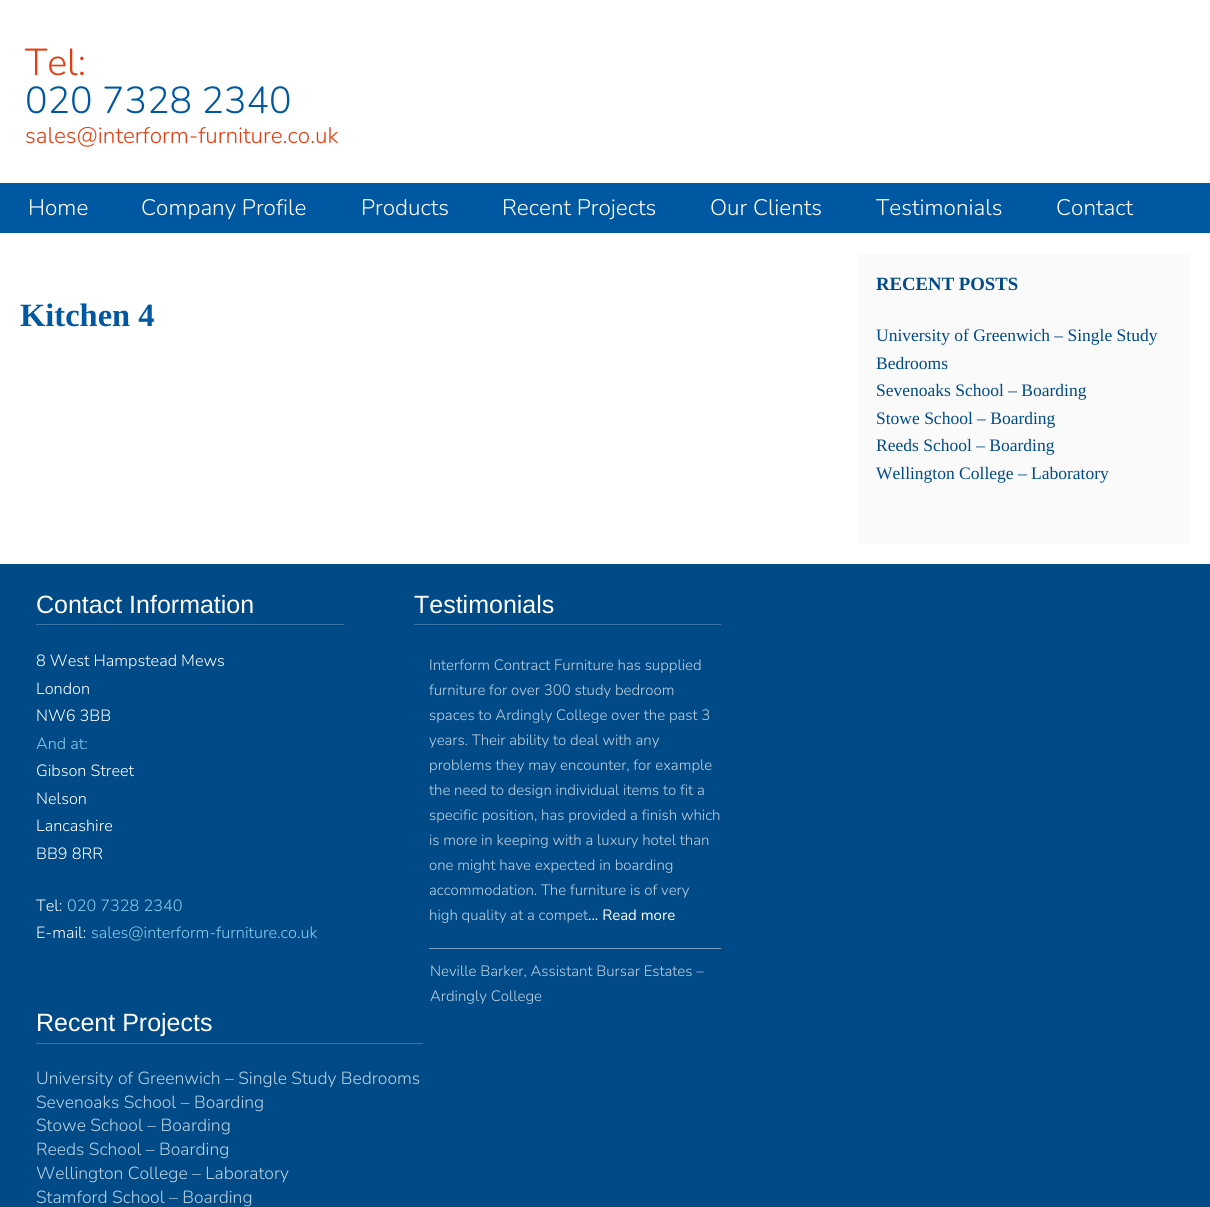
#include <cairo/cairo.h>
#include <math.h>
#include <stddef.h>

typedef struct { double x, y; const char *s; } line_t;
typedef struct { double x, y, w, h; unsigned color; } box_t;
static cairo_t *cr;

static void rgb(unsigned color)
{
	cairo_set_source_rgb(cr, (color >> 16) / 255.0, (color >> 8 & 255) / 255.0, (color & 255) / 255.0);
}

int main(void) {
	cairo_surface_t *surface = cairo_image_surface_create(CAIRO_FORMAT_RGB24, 1210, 1207);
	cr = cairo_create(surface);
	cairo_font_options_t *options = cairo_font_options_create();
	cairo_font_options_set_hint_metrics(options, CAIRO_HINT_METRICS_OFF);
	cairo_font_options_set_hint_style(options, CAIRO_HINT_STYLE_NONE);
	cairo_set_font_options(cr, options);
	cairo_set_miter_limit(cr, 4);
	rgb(0xffffff);
	cairo_paint(cr);
	{
		static const box_t items[] = {
			{0, 183, 1210, 50, 0x0058a2},
			{0, 233, 1210, 1, 0xfafafa},
			{858, 254, 332, 290, 0xfafafa},
			{0, 564, 1210, 643, 0x004a88},
			{36, 624, 308, 1, 0x3d75a4},
			{414, 624, 307, 1, 0x3d75a4},
			{429, 948, 292, 1, 0x80a5c4},
			{36, 1043, 387, 1, 0x3d75a4},
		};
		for (size_t i = 0; i < sizeof items / sizeof *items; i++) {
			rgb(items[i].color);
			cairo_rectangle(cr, items[i].x, items[i].y, items[i].w, items[i].h);
			cairo_fill(cr);
		}
	}
	cairo_select_font_face(cr, "Nunito Light", CAIRO_FONT_SLANT_NORMAL, CAIRO_FONT_WEIGHT_NORMAL);
	cairo_set_font_size(cr, 37.5);
	rgb(0xe53d11);
	cairo_move_to(cr, 25, 75);
	cairo_show_text(cr, "Tel:");
	rgb(0x0058a2);
	cairo_move_to(cr, 25, 113);
	cairo_show_text(cr, "020 7328 2340");
	cairo_set_font_size(cr, 22.5);
	rgb(0xe53d11);
	cairo_move_to(cr, 25, 143);
	cairo_show_text(cr, "sales@interform-furniture.co.uk");
	rgb(0xffffff);
	{
		static const line_t items[] = {
			{28, 215, "Home"},
			{141, 215, "Company Profile"},
			{361, 215, "Products"},
			{502, 215, "Recent Projects"},
			{710, 215, "Our Clients"},
			{876, 215, "Testimonials"},
			{1056, 215, "Contact"},
		};
		for (size_t i = 0; i < sizeof items / sizeof *items; i++) {
			cairo_move_to(cr, items[i].x, items[i].y);
			cairo_show_text(cr, items[i].s);
		}
	}
	cairo_select_font_face(cr, "Liberation Serif", CAIRO_FONT_SLANT_NORMAL, CAIRO_FONT_WEIGHT_BOLD);
	cairo_set_font_size(cr, 32.5);
	rgb(0x0058a2);
	cairo_move_to(cr, 20, 326);
	cairo_show_text(cr, "Kitchen 4");
	cairo_set_font_size(cr, 18.75);
	rgb(0x004a88);
	cairo_move_to(cr, 876, 290);
	cairo_show_text(cr, "RECENT POSTS");
	cairo_select_font_face(cr, "Liberation Serif", CAIRO_FONT_SLANT_NORMAL, CAIRO_FONT_WEIGHT_NORMAL);
	cairo_set_font_size(cr, 17.5);
	{
		static const line_t items[] = {
			{876, 341, "University of Greenwich – Single Study"},
			{876, 369, "Bedrooms"},
			{876, 396, "Sevenoaks School – Boarding"},
			{876, 424, "Stowe School – Boarding"},
			{876, 451, "Reeds School – Boarding"},
			{876, 479, "Wellington College – Laboratory"},
		};
		for (size_t i = 0; i < sizeof items / sizeof *items; i++) {
			cairo_move_to(cr, items[i].x, items[i].y);
			cairo_show_text(cr, items[i].s);
		}
	}
	cairo_select_font_face(cr, "Liberation Sans", CAIRO_FONT_SLANT_NORMAL, CAIRO_FONT_WEIGHT_NORMAL);
	cairo_set_font_size(cr, 25);
	rgb(0xffffff);
	cairo_move_to(cr, 36, 613);
	cairo_show_text(cr, "Contact Information");
	cairo_select_font_face(cr, "Nunito Light", CAIRO_FONT_SLANT_NORMAL, CAIRO_FONT_WEIGHT_NORMAL);
	cairo_set_font_size(cr, 16.25);
	{
		static const line_t items[] = {
			{36, 666, "8 West Hampstead Mews"},
			{36, 694, "London"},
			{36, 721, "NW6 3BB"},
		};
		for (size_t i = 0; i < sizeof items / sizeof *items; i++) {
			cairo_move_to(cr, items[i].x, items[i].y);
			cairo_show_text(cr, items[i].s);
		}
	}
	rgb(0x87cceb);
	cairo_move_to(cr, 36, 749);
	cairo_show_text(cr, "And at:");
	rgb(0xffffff);
	{
		static const line_t items[] = {
			{36, 776, "Gibson Street"},
			{36, 804, "Nelson"},
			{36, 831, "Lancashire"},
			{36, 859, "BB9 8RR"},
			{36, 911, "Tel:"},
		};
		for (size_t i = 0; i < sizeof items / sizeof *items; i++) {
			cairo_move_to(cr, items[i].x, items[i].y);
			cairo_show_text(cr, items[i].s);
		}
	}
	rgb(0x87cceb);
	cairo_move_to(cr, 67, 911);
	cairo_show_text(cr, "020 7328 2340");
	rgb(0xffffff);
	cairo_move_to(cr, 36, 938);
	cairo_show_text(cr, "E-mail:");
	rgb(0x87cceb);
	cairo_move_to(cr, 91, 938);
	cairo_show_text(cr, "sales@interform-furniture.co.uk");
	cairo_select_font_face(cr, "Liberation Sans", CAIRO_FONT_SLANT_NORMAL, CAIRO_FONT_WEIGHT_NORMAL);
	cairo_set_font_size(cr, 25);
	rgb(0xffffff);
	cairo_move_to(cr, 414, 613);
	cairo_show_text(cr, "Testimonials");
	cairo_select_font_face(cr, "Nunito Light", CAIRO_FONT_SLANT_NORMAL, CAIRO_FONT_WEIGHT_NORMAL);
	cairo_set_font_size(cr, 15);
	rgb(0xbfd2e1);
	{
		static const line_t items[] = {
			{429, 670, "Interform Contract Furniture has supplied"},
			{429, 695, "furniture for over 300 study bedroom"},
			{429, 720, "spaces to Ardingly College over the past 3"},
			{429, 745, "years. Their ability to deal with any"},
			{429, 770, "problems they may encounter, for example"},
			{429, 795, "the need to design individual items to fit a"},
			{429, 820, "specific position, has provided a finish which"},
			{429, 845, "is more in keeping with a luxury hotel than"},
			{429, 870, "one might have expected in boarding"},
			{429, 895, "accommodation. The furniture is of very"},
			{429, 920, "high quality at a compet"},
		};
		for (size_t i = 0; i < sizeof items / sizeof *items; i++) {
			cairo_move_to(cr, items[i].x, items[i].y);
			cairo_show_text(cr, items[i].s);
		}
	}
	cairo_select_font_face(cr, "Nunito", CAIRO_FONT_SLANT_NORMAL, CAIRO_FONT_WEIGHT_NORMAL);
	rgb(0xffffff);
	cairo_move_to(cr, 588, 920);
	cairo_show_text(cr, "... Read more");
	cairo_select_font_face(cr, "Nunito Light", CAIRO_FONT_SLANT_NORMAL, CAIRO_FONT_WEIGHT_NORMAL);
	rgb(0xbfd2e1);
	cairo_move_to(cr, 430, 976);
	cairo_show_text(cr, "Neville Barker, Assistant Bursar Estates –");
	cairo_move_to(cr, 430, 1001);
	cairo_show_text(cr, "Ardingly College");
	cairo_select_font_face(cr, "Liberation Sans", CAIRO_FONT_SLANT_NORMAL, CAIRO_FONT_WEIGHT_NORMAL);
	cairo_set_font_size(cr, 25);
	rgb(0xffffff);
	cairo_move_to(cr, 36, 1031);
	cairo_show_text(cr, "Recent Projects");
	cairo_select_font_face(cr, "Nunito Light", CAIRO_FONT_SLANT_NORMAL, CAIRO_FONT_WEIGHT_NORMAL);
	cairo_set_font_size(cr, 17.5);
	rgb(0xb9d2e1);
	{
		static const line_t items[] = {
			{36, 1084, "University of Greenwich – Single Study Bedrooms"},
			{36, 1108, "Sevenoaks School – Boarding"},
			{36, 1131, "Stowe School – Boarding"},
			{36, 1155, "Reeds School – Boarding"},
			{36, 1179, "Wellington College – Laboratory"},
			{36, 1203, "Stamford School – Boarding"},
		};
		for (size_t i = 0; i < sizeof items / sizeof *items; i++) {
			cairo_move_to(cr, items[i].x, items[i].y);
			cairo_show_text(cr, items[i].s);
		}
	}
	cairo_surface_write_to_png(surface, "page.png");
	cairo_font_options_destroy(options);
	cairo_destroy(cr);
	cairo_surface_destroy(surface);
	return 0;
}
